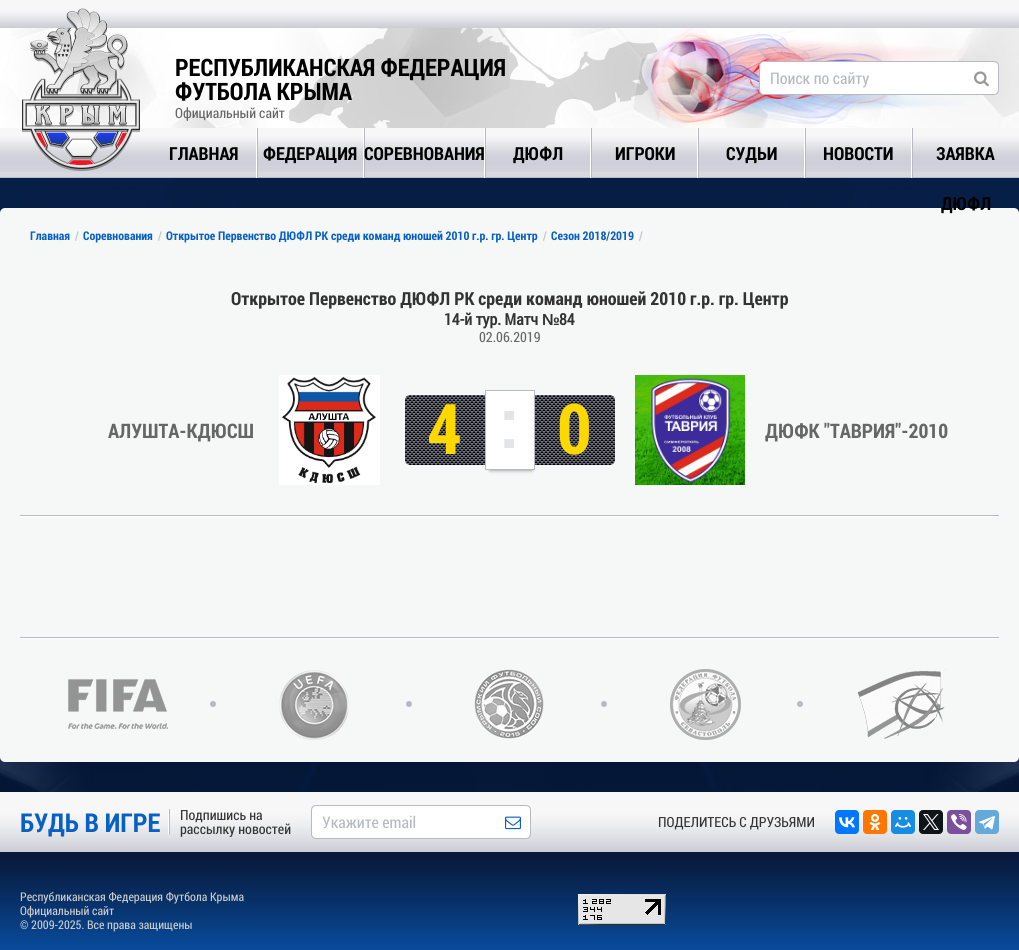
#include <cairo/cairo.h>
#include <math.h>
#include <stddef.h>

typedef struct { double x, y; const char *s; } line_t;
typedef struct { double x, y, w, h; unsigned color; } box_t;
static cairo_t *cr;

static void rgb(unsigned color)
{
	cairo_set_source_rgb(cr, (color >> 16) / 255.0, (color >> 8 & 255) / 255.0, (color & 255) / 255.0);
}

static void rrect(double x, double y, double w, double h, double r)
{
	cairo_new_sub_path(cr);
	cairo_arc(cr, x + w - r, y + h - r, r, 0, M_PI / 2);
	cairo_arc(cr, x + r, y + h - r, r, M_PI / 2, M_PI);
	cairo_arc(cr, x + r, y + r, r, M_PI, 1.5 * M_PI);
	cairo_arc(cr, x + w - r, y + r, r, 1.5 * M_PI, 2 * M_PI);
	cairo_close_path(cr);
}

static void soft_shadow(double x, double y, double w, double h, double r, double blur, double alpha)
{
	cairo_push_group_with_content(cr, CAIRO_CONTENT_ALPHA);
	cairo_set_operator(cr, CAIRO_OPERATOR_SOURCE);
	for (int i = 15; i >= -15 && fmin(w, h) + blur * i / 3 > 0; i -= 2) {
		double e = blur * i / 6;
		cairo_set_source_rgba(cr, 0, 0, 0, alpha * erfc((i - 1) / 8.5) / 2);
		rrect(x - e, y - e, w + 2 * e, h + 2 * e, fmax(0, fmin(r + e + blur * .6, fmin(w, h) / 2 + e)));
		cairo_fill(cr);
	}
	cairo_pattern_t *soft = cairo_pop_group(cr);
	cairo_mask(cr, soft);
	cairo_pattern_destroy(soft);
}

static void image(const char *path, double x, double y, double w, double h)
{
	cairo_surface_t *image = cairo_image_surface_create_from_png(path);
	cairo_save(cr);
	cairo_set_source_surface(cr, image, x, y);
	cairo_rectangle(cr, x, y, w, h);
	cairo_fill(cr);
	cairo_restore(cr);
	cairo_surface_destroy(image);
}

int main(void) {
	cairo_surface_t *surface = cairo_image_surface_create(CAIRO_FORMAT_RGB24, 1019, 950);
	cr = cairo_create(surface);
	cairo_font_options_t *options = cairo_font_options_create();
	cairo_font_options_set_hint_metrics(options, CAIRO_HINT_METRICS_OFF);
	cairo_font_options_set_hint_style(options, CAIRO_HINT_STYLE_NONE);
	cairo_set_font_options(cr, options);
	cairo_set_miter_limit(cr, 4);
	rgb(0xffffff);
	cairo_paint(cr);
	image("img/1.png", 0, 0, 1019, 28);
	image("img/2.png", 0, 28, 1019, 100);
	image("img/7.png", 0, 128, 1019, 44);
	image("img/3.png", 22, 8, 118, 163);
	image("img/4.png", 288, 28, 370, 100);
	image("img/5.png", 644, 28, 321, 100);
	rgb(0xffffff);
	rrect(759.5, 61.5, 239, 33, 4.5);
	cairo_fill_preserve(cr);
	rgb(0xb8bac3);
	cairo_set_line_width(cr, 1);
	cairo_stroke(cr);
	image("img/6.png", 974, 71, 15, 16);
	{
		static const box_t items[] = {
			{0, 172, 1019, 5, 0xd8d9e0},
			{0, 177, 1019, 1, 0xb8bac3},
			{257, 128, 1, 50, 0xb8bac3},
			{256, 128, 1, 50, 0xffffff},
			{364, 128, 1, 50, 0xb8bac3},
			{363, 128, 1, 50, 0xffffff},
			{485, 128, 1, 50, 0xb8bac3},
			{484, 128, 1, 50, 0xffffff},
			{591, 128, 1, 50, 0xb8bac3},
			{590, 128, 1, 50, 0xffffff},
			{698, 128, 1, 50, 0xb8bac3},
			{697, 128, 1, 50, 0xffffff},
			{805, 128, 1, 50, 0xb8bac3},
			{804, 128, 1, 50, 0xffffff},
			{912, 128, 1, 50, 0xb8bac3},
			{911, 128, 1, 50, 0xffffff},
		};
		for (size_t i = 0; i < sizeof items / sizeof *items; i++) {
			rgb(items[i].color);
			cairo_rectangle(cr, items[i].x, items[i].y, items[i].w, items[i].h);
			cairo_fill(cr);
		}
	}
	image("img/8.png", 0, 178, 1019, 614);
	rgb(0xf6f7f7);
	rrect(0, 208, 1019, 554, 5);
	cairo_fill(cr);
	image("img/9.png", 279, 375, 101, 110);
	image("img/10.png", 405, 395, 210, 70);
	rgb(0x000000);
	soft_shadow(490, 398, 42, 72, 0, 2, 0.5);
	rgb(0xffffff);
	cairo_rectangle(cr, 485.5, 390.5, 49, 79);
	cairo_fill_preserve(cr);
	rgb(0xb8bac3);
	cairo_stroke(cr);
	image("img/11.png", 635, 375, 110, 110);
	{
		static const box_t items[] = {
			{20, 515, 979, 1, 0xb8bac3},
			{20, 516, 979, 1, 0xffffff},
			{20, 637, 979, 1, 0xb8bac3},
			{20, 638, 979, 1, 0xffffff},
		};
		for (size_t i = 0; i < sizeof items / sizeof *items; i++) {
			rgb(items[i].color);
			cairo_rectangle(cr, items[i].x, items[i].y, items[i].w, items[i].h);
			cairo_fill(cr);
		}
	}
	image("img/12.png", 68, 679, 100, 50);
	rgb(0xb8bac3);
	cairo_arc(cr, 213, 704, 3, 0, 2 * M_PI);
	cairo_fill(cr);
	image("img/13.png", 279, 670, 70, 70);
	cairo_arc(cr, 409, 704, 3, 0, 2 * M_PI);
	cairo_fill(cr);
	image("img/14.png", 474, 669, 70, 70);
	cairo_arc(cr, 604, 704, 3, 0, 2 * M_PI);
	cairo_fill(cr);
	image("img/15.png", 670, 669, 71, 71);
	cairo_arc(cr, 800, 704, 3, 0, 2 * M_PI);
	cairo_fill(cr);
	image("img/16.png", 857, 669, 89, 70);
	image("img/17.png", 0, 792, 1019, 60);
	rgb(0xffffff);
	cairo_rectangle(cr, 168, 809, 1, 26);
	cairo_fill(cr);
	rgb(0xb8bac3);
	cairo_rectangle(cr, 169, 809, 1, 26);
	cairo_fill(cr);
	rgb(0xffffff);
	rrect(311.5, 805.5, 219, 33, 4.5);
	cairo_fill_preserve(cr);
	rgb(0xb8bac3);
	cairo_stroke(cr);
	image("img/18.png", 505, 816, 16, 14);
	rgb(0x0077ff);
	rrect(835, 810, 24, 24, 4);
	cairo_fill(cr);
	image("img/19.png", 839, 817, 16, 11);
	rgb(0xff7700);
	rrect(863, 810, 24, 24, 4);
	cairo_fill(cr);
	image("img/20.png", 869, 814, 12, 16);
	rgb(0x168de2);
	rrect(891, 810, 24, 24, 4);
	cairo_fill(cr);
	image("img/21.png", 895, 817, 16, 11);
	rgb(0x0f1419);
	rrect(919, 810, 24, 24, 4);
	cairo_fill(cr);
	image("img/22.png", 923, 814, 16, 16);
	rgb(0x7b519d);
	rrect(947, 810, 24, 24, 4);
	cairo_fill(cr);
	image("img/23.png", 951, 814, 16, 16);
	rgb(0x64a9dc);
	rrect(975, 810, 24, 24, 4);
	cairo_fill(cr);
	image("img/24.png", 979, 816, 16, 14);
	image("img/25.png", 0, 852, 1019, 98);
	image("img/26.png", 578, 894, 88, 31);
	cairo_select_font_face(cr, "Roboto Condensed", CAIRO_FONT_SLANT_NORMAL, CAIRO_FONT_WEIGHT_BOLD);
	cairo_set_font_size(cr, 24);
	rgb(0x000000);
	cairo_move_to(cr, 175, 76);
	cairo_show_text(cr, "РЕСПУБЛИКАНСКАЯ ФЕДЕРАЦИЯ");
	cairo_move_to(cr, 175, 100);
	cairo_show_text(cr, "ФУТБОЛА КРЫМА");
	cairo_select_font_face(cr, "Roboto Condensed", CAIRO_FONT_SLANT_NORMAL, CAIRO_FONT_WEIGHT_NORMAL);
	cairo_set_font_size(cr, 14);
	rgb(0x666666);
	cairo_move_to(cr, 175, 118);
	cairo_show_text(cr, "Официальный сайт");
	cairo_set_font_size(cr, 16);
	rgb(0xb8bac3);
	cairo_move_to(cr, 770, 84);
	cairo_show_text(cr, "Поиск по сайту");
	cairo_select_font_face(cr, "Roboto Condensed", CAIRO_FONT_SLANT_NORMAL, CAIRO_FONT_WEIGHT_BOLD);
	cairo_set_font_size(cr, 18);
	rgb(0x000000);
	{
		static const line_t items[] = {
			{169, 160, "ГЛАВНАЯ"},
			{263, 160, "ФЕДЕРАЦИЯ"},
			{364, 160, "СОРЕВНОВАНИЯ"},
			{513, 160, "ДЮФЛ"},
			{615, 160, "ИГРОКИ"},
			{726, 160, "СУДЬИ"},
			{823, 160, "НОВОСТИ"},
			{936, 160, "ЗАЯВКА"},
			{941, 210, "ДЮФЛ"},
		};
		for (size_t i = 0; i < sizeof items / sizeof *items; i++) {
			cairo_move_to(cr, items[i].x, items[i].y);
			cairo_show_text(cr, items[i].s);
		}
	}
	cairo_set_font_size(cr, 12);
	rgb(0x0860c4);
	cairo_move_to(cr, 30, 240);
	cairo_show_text(cr, "Главная");
	rgb(0xc1c3cb);
	cairo_move_to(cr, 75, 240);
	cairo_show_text(cr, "/");
	rgb(0x0860c4);
	cairo_move_to(cr, 83, 240);
	cairo_show_text(cr, "Соревнования");
	rgb(0xc1c3cb);
	cairo_move_to(cr, 158, 240);
	cairo_show_text(cr, "/");
	rgb(0x0860c4);
	cairo_move_to(cr, 166, 240);
	cairo_show_text(cr, "Открытое Первенство ДЮФЛ РК среди команд юношей 2010 г.р. гр. Центр");
	rgb(0xc1c3cb);
	cairo_move_to(cr, 543, 240);
	cairo_show_text(cr, "/");
	rgb(0x0860c4);
	cairo_move_to(cr, 551, 240);
	cairo_show_text(cr, "Сезон 2018/2019");
	rgb(0xc1c3cb);
	cairo_move_to(cr, 639, 240);
	cairo_show_text(cr, "/");
	cairo_set_font_size(cr, 18);
	rgb(0x333333);
	cairo_move_to(cr, 231, 305);
	cairo_show_text(cr, "Открытое Первенство ДЮФЛ РК среди команд юношей 2010 г.р. гр. Центр");
	cairo_select_font_face(cr, "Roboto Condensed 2", CAIRO_FONT_SLANT_NORMAL, CAIRO_FONT_WEIGHT_BOLD);
	cairo_set_font_size(cr, 16);
	cairo_move_to(cr, 444, 325);
	cairo_show_text(cr, "14-й тур. Матч");
	cairo_select_font_face(cr, "Liberation Sans", CAIRO_FONT_SLANT_NORMAL, CAIRO_FONT_WEIGHT_BOLD);
	cairo_move_to(cr, 542, 325);
	cairo_show_text(cr, "№");
	cairo_select_font_face(cr, "Roboto Condensed 2", CAIRO_FONT_SLANT_NORMAL, CAIRO_FONT_WEIGHT_BOLD);
	cairo_move_to(cr, 559, 325);
	cairo_show_text(cr, "84");
	cairo_select_font_face(cr, "Roboto Condensed", CAIRO_FONT_SLANT_NORMAL, CAIRO_FONT_WEIGHT_NORMAL);
	cairo_set_font_size(cr, 14);
	rgb(0x666666);
	cairo_move_to(cr, 479, 342);
	cairo_show_text(cr, "02.06.2019");
	cairo_select_font_face(cr, "Roboto Condensed", CAIRO_FONT_SLANT_NORMAL, CAIRO_FONT_WEIGHT_BOLD);
	cairo_set_font_size(cr, 20);
	cairo_move_to(cr, 108, 438);
	cairo_show_text(cr, "АЛУШТА-КДЮСШ");
	cairo_set_font_size(cr, 70);
	rgb(0xffd800);
	cairo_move_to(cr, 427, 454);
	cairo_show_text(cr, "4");
	rgb(0xe3e4e8);
	cairo_move_to(cr, 500, 448);
	cairo_show_text(cr, ":");
	rgb(0xffd800);
	cairo_move_to(cr, 557, 454);
	cairo_show_text(cr, "0");
	cairo_set_font_size(cr, 20);
	rgb(0x666666);
	cairo_move_to(cr, 765, 438);
	cairo_show_text(cr, "ДЮФК \"ТАВРИЯ\"-2010");
	cairo_set_font_size(cr, 26);
	rgb(0x0860c4);
	cairo_move_to(cr, 20, 832);
	cairo_show_text(cr, "БУДЬ В ИГРЕ");
	cairo_select_font_face(cr, "Roboto Condensed", CAIRO_FONT_SLANT_NORMAL, CAIRO_FONT_WEIGHT_NORMAL);
	cairo_set_font_size(cr, 14);
	rgb(0x333333);
	cairo_move_to(cr, 180, 820);
	cairo_show_text(cr, "Подпишись на");
	cairo_move_to(cr, 180, 834);
	cairo_show_text(cr, "рассылку новостей");
	cairo_set_font_size(cr, 16);
	rgb(0xb8bac3);
	cairo_move_to(cr, 322, 828);
	cairo_show_text(cr, "Укажите email");
	cairo_set_font_size(cr, 14);
	rgb(0x333333);
	cairo_move_to(cr, 658, 827);
	cairo_show_text(cr, "ПОДЕЛИТЕСЬ С ДРУЗЬЯМИ");
	cairo_set_font_size(cr, 12);
	rgb(0xcccccc);
	{
		static const line_t items[] = {
			{20, 901, "Республиканская Федерация Футбола Крыма"},
			{20, 915, "Официальный сайт"},
			{20, 929, "© 2009-2025. Все права защищены"},
		};
		for (size_t i = 0; i < sizeof items / sizeof *items; i++) {
			cairo_move_to(cr, items[i].x, items[i].y);
			cairo_show_text(cr, items[i].s);
		}
	}
	cairo_surface_write_to_png(surface, "page.png");
	cairo_font_options_destroy(options);
	cairo_destroy(cr);
	cairo_surface_destroy(surface);
	return 0;
}
